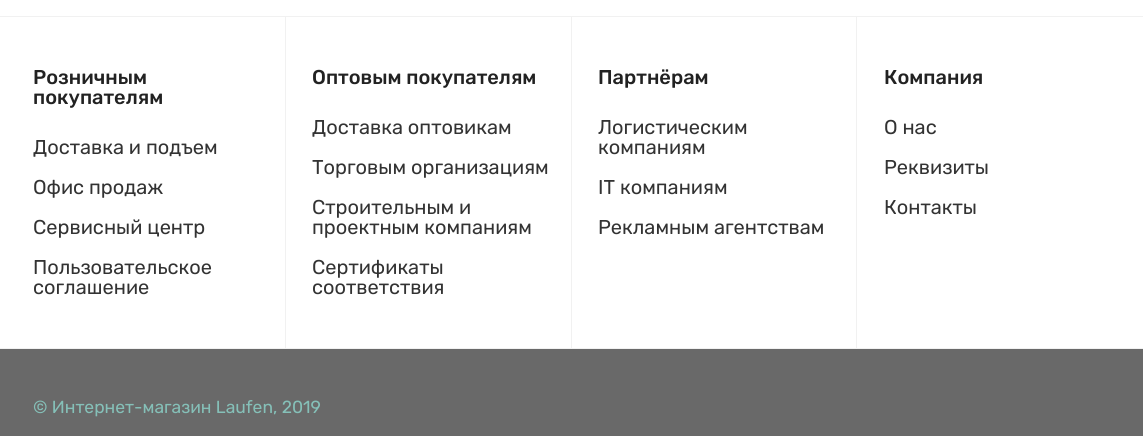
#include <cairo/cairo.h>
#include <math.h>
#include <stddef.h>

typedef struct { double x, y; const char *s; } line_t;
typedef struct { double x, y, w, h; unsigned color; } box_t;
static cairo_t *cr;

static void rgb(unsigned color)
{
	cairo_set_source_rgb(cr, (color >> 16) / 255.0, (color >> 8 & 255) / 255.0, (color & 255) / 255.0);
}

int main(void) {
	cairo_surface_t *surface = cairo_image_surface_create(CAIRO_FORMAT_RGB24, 1143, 436);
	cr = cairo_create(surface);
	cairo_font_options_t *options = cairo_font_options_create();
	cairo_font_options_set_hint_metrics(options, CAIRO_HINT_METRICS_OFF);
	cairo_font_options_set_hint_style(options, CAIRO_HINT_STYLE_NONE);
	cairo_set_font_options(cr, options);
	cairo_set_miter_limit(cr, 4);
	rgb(0xffffff);
	cairo_paint(cr);
	{
		static const box_t items[] = {
			{0, 16, 1143, 1, 0xf1f1f1},
			{285, 16, 1, 333, 0xf1f1f1},
			{0, 348, 286, 1, 0xf1f1f1},
			{571, 16, 1, 333, 0xf1f1f1},
			{286, 348, 287, 1, 0xf1f1f1},
			{856, 16, 1, 333, 0xf1f1f1},
			{573, 348, 570, 1, 0xf1f1f1},
			{0, 349, 1143, 87, 0x696969},
		};
		for (size_t i = 0; i < sizeof items / sizeof *items; i++) {
			rgb(items[i].color);
			cairo_rectangle(cr, items[i].x, items[i].y, items[i].w, items[i].h);
			cairo_fill(cr);
		}
	}
	cairo_select_font_face(cr, "Rubik Medium", CAIRO_FONT_SLANT_NORMAL, CAIRO_FONT_WEIGHT_NORMAL);
	cairo_set_font_size(cr, 20);
	rgb(0x222222);
	cairo_move_to(cr, 33, 84);
	cairo_show_text(cr, "Розничным");
	cairo_move_to(cr, 33, 104);
	cairo_show_text(cr, "покупателям");
	cairo_select_font_face(cr, "Rubik", CAIRO_FONT_SLANT_NORMAL, CAIRO_FONT_WEIGHT_NORMAL);
	rgb(0x333333);
	{
		static const line_t items[] = {
			{33, 154, "Доставка и подъем"},
			{33, 194, "Офис продаж"},
			{33, 234, "Сервисный центр"},
			{33, 274, "Пользовательское"},
			{33, 294, "соглашение"},
		};
		for (size_t i = 0; i < sizeof items / sizeof *items; i++) {
			cairo_move_to(cr, items[i].x, items[i].y);
			cairo_show_text(cr, items[i].s);
		}
	}
	cairo_select_font_face(cr, "Rubik Medium", CAIRO_FONT_SLANT_NORMAL, CAIRO_FONT_WEIGHT_NORMAL);
	rgb(0x222222);
	cairo_move_to(cr, 312, 84);
	cairo_show_text(cr, "Оптовым покупателям");
	cairo_select_font_face(cr, "Rubik", CAIRO_FONT_SLANT_NORMAL, CAIRO_FONT_WEIGHT_NORMAL);
	rgb(0x333333);
	{
		static const line_t items[] = {
			{312, 134, "Доставка оптовикам"},
			{312, 174, "Торговым организациям"},
			{312, 214, "Строительным и"},
			{312, 234, "проектным компаниям"},
			{312, 274, "Сертификаты"},
			{312, 294, "соответствия"},
		};
		for (size_t i = 0; i < sizeof items / sizeof *items; i++) {
			cairo_move_to(cr, items[i].x, items[i].y);
			cairo_show_text(cr, items[i].s);
		}
	}
	cairo_select_font_face(cr, "Rubik Medium", CAIRO_FONT_SLANT_NORMAL, CAIRO_FONT_WEIGHT_NORMAL);
	rgb(0x222222);
	cairo_move_to(cr, 598, 84);
	cairo_show_text(cr, "Партнёрам");
	cairo_select_font_face(cr, "Rubik", CAIRO_FONT_SLANT_NORMAL, CAIRO_FONT_WEIGHT_NORMAL);
	rgb(0x333333);
	{
		static const line_t items[] = {
			{598, 134, "Логистическим"},
			{598, 154, "компаниям"},
			{598, 194, "IT компаниям"},
			{598, 234, "Рекламным агентствам"},
		};
		for (size_t i = 0; i < sizeof items / sizeof *items; i++) {
			cairo_move_to(cr, items[i].x, items[i].y);
			cairo_show_text(cr, items[i].s);
		}
	}
	cairo_select_font_face(cr, "Rubik Medium", CAIRO_FONT_SLANT_NORMAL, CAIRO_FONT_WEIGHT_NORMAL);
	rgb(0x222222);
	cairo_move_to(cr, 884, 84);
	cairo_show_text(cr, "Компания");
	cairo_select_font_face(cr, "Rubik", CAIRO_FONT_SLANT_NORMAL, CAIRO_FONT_WEIGHT_NORMAL);
	rgb(0x333333);
	{
		static const line_t items[] = {
			{884, 134, "О нас"},
			{884, 174, "Реквизиты"},
			{884, 214, "Контакты"},
		};
		for (size_t i = 0; i < sizeof items / sizeof *items; i++) {
			cairo_move_to(cr, items[i].x, items[i].y);
			cairo_show_text(cr, items[i].s);
		}
	}
	cairo_set_font_size(cr, 17.5);
	rgb(0x85c0b8);
	cairo_move_to(cr, 33, 413);
	cairo_show_text(cr, "© Интернет-магазин Laufen, 2019");
	cairo_surface_write_to_png(surface, "page.png");
	cairo_font_options_destroy(options);
	cairo_destroy(cr);
	cairo_surface_destroy(surface);
	return 0;
}
